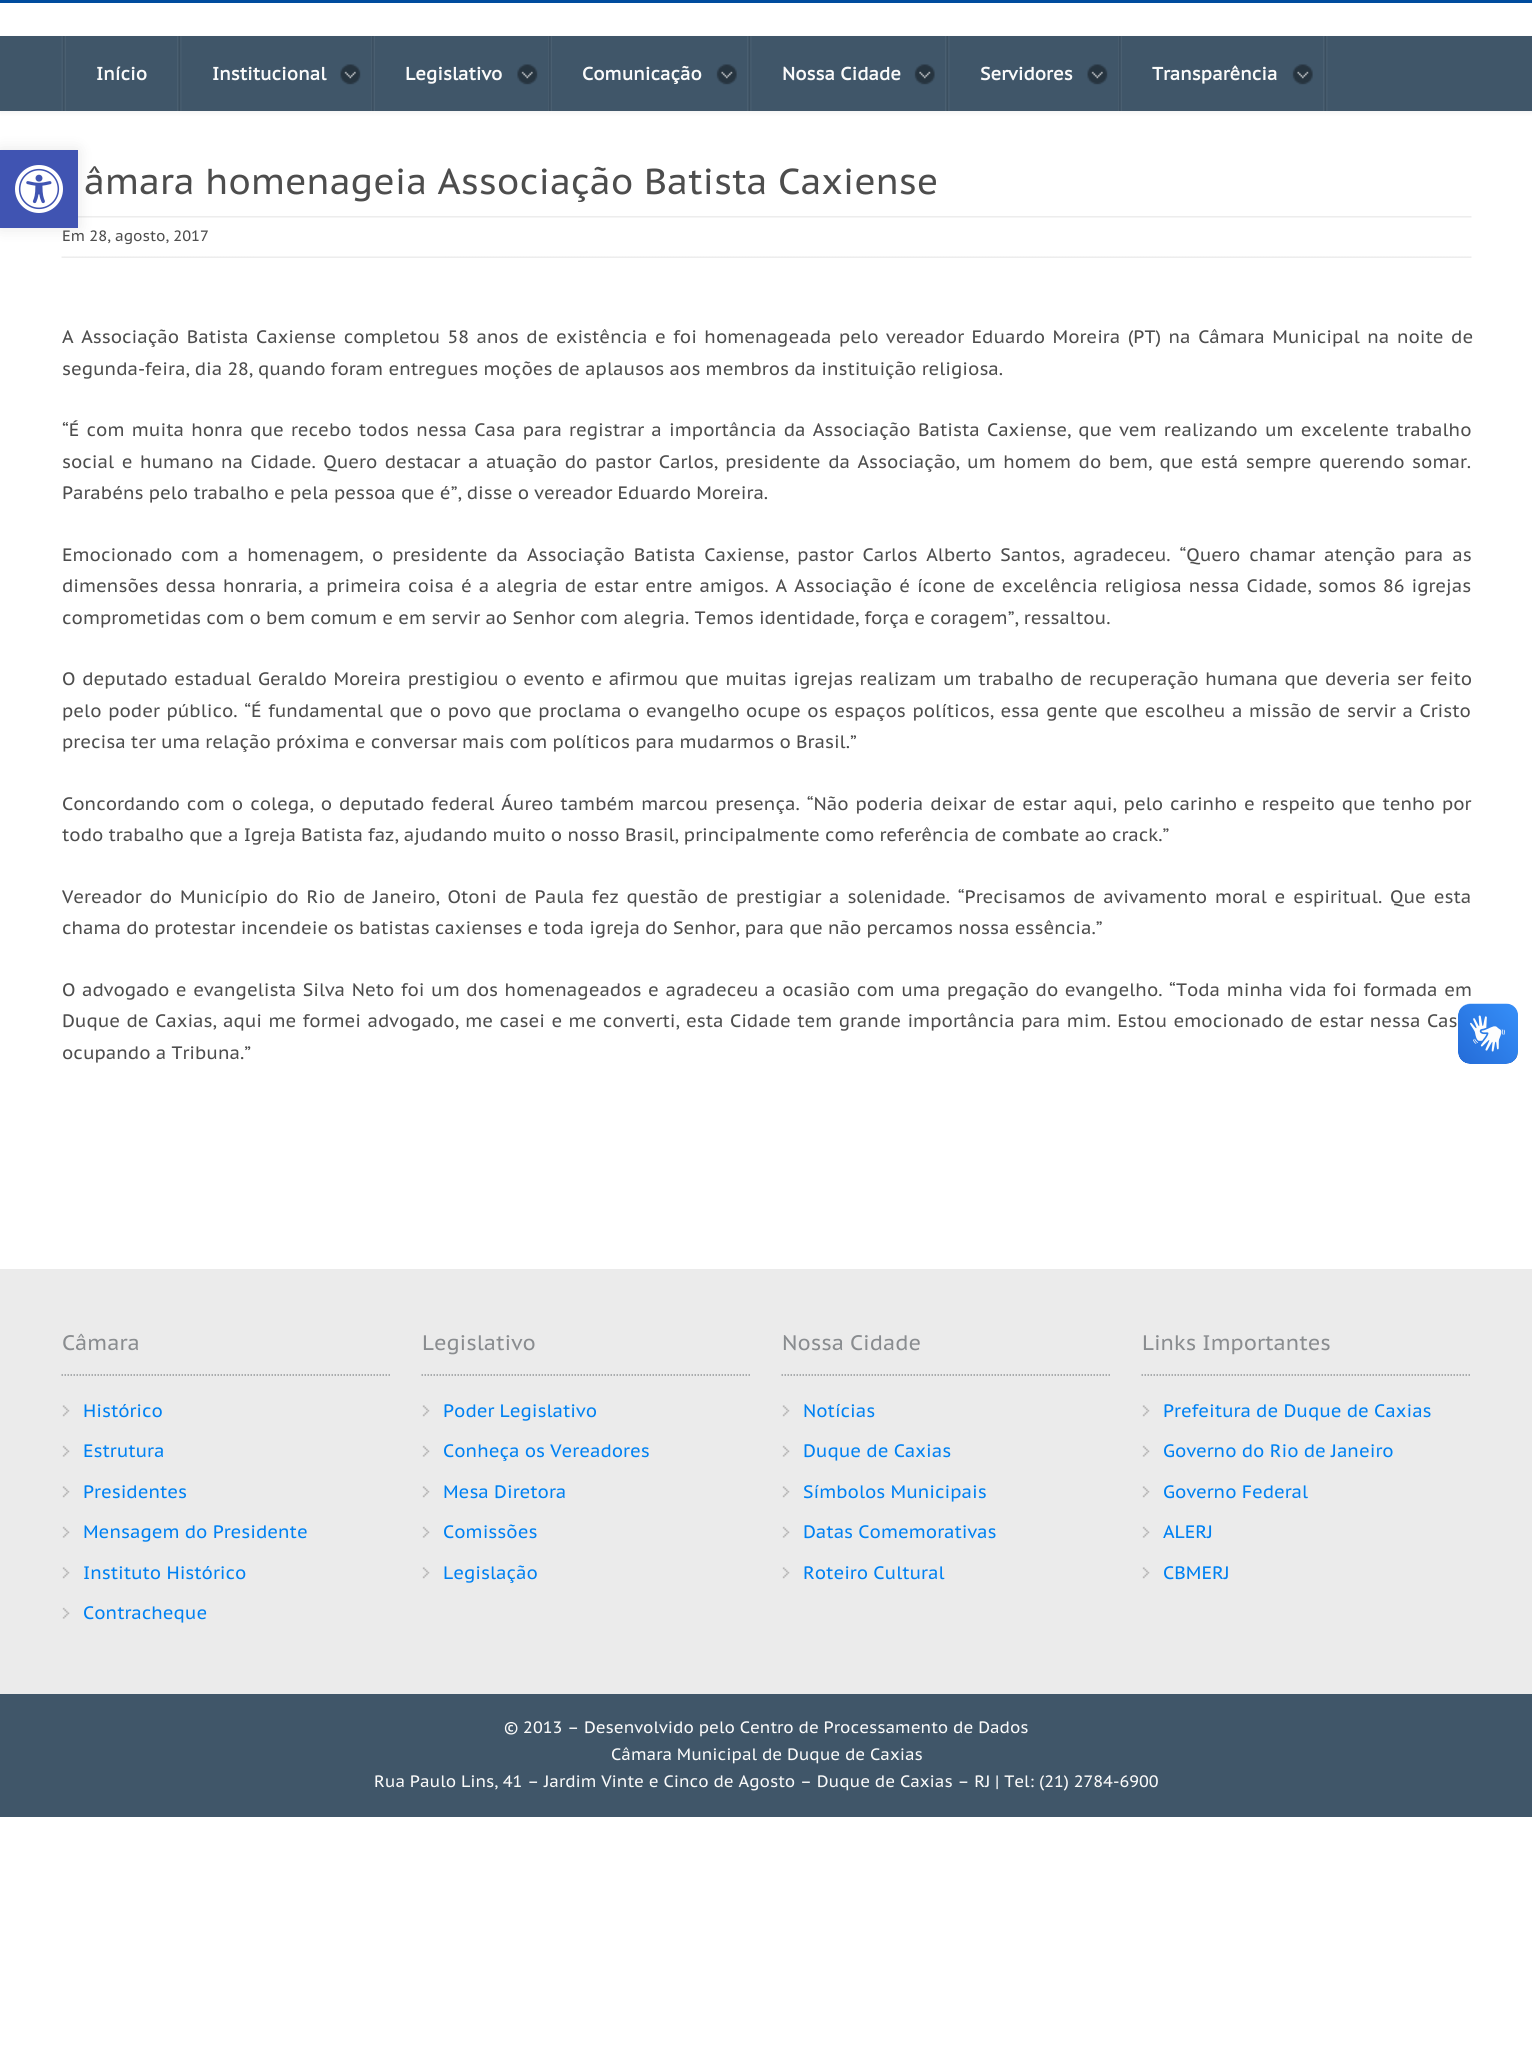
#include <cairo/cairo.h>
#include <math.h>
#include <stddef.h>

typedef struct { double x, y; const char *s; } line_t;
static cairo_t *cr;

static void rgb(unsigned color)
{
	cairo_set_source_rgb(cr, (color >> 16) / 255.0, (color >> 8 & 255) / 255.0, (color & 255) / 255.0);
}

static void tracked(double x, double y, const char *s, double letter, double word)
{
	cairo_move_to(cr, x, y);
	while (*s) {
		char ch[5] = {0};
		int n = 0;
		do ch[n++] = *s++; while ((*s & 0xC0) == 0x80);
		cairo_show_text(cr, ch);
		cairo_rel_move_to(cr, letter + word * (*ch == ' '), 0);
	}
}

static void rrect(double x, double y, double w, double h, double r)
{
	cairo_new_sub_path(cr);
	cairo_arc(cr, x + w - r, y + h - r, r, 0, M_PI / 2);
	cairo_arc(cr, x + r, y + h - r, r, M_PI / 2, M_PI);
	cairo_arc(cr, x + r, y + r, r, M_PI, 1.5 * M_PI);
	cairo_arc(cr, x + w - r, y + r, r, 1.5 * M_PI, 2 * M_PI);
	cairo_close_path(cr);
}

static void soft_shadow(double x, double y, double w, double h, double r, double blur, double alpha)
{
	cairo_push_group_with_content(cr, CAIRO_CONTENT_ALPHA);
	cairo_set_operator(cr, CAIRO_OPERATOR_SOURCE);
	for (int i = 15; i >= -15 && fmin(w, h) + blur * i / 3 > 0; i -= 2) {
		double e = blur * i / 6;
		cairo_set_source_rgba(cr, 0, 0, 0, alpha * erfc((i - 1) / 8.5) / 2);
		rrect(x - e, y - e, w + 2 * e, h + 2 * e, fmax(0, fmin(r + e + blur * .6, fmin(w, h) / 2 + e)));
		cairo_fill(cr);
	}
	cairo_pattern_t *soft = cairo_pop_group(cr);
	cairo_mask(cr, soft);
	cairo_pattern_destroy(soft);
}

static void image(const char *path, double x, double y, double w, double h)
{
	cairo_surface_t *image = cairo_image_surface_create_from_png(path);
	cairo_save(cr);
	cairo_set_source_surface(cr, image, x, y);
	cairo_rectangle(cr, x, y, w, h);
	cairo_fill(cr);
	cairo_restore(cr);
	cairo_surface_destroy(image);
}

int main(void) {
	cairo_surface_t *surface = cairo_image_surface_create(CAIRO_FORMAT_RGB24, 1532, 2066);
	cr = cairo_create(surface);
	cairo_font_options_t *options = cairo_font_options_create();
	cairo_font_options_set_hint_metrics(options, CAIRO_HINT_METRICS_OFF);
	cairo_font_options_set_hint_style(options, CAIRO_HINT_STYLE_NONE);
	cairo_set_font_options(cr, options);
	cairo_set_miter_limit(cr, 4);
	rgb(0xffffff);
	cairo_paint(cr);
	image("img/10.png", 78, 216, 1394, 2);
	rgb(0x000000);
	soft_shadow(0, 150, 78, 78, 0, 7.5, 0.1);
	rgb(0x4054b2);
	cairo_rectangle(cr, 0, 150, 78, 78);
	cairo_fill(cr);
	image("img/1.png", 15, 165, 48, 48);
	rgb(0x004c9e);
	cairo_rectangle(cr, 0, 0, 1532, 3);
	cairo_fill(cr);
	rgb(0x000000);
	soft_shadow(0, 38, 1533, 75, 0, 2, 0.05);
	rgb(0x405669);
	cairo_rectangle(cr, 0, 36, 1532, 75);
	cairo_fill(cr);
	image("img/2.png", 61, 36, 5, 75);
	image("img/3.png", 177, 36, 5, 75);
	image("img/4.png", 371, 36, 4, 75);
	image("img/5.png", 340, 64, 21, 21);
	image("img/4.png", 548, 36, 4, 75);
	image("img/6.png", 517, 64, 21, 21);
	image("img/7.png", 747, 36, 5, 75);
	image("img/8.png", 716, 64, 21, 21);
	image("img/3.png", 945, 36, 5, 75);
	image("img/9.png", 914, 64, 21, 21);
	image("img/4.png", 1118, 36, 4, 75);
	image("img/5.png", 1087, 64, 21, 21);
	image("img/7.png", 1323, 36, 5, 75);
	image("img/8.png", 1292, 64, 21, 21);
	image("img/11.png", 61, 256, 1411, 2);
	rgb(0xebebeb);
	cairo_rectangle(cr, 0, 1269, 1532, 425);
	cairo_fill(cr);
	cairo_new_path(cr);
	cairo_move_to(cr, 61.5, 1375);
	cairo_line_to(cr, 391.5, 1375);
	rgb(0x949799);
	cairo_set_line_width(cr, 1.5);
	cairo_set_dash(cr, (double[]){1.5, 1.5}, 2, 0);
	cairo_stroke(cr);
	image("img/12.png", 62, 1405, 8, 12);
	image("img/13.png", 62, 1445, 8, 12);
	image("img/12.png", 62, 1486, 8, 12);
	image("img/13.png", 62, 1526, 8, 12);
	image("img/12.png", 62, 1567, 8, 12);
	image("img/13.png", 62, 1607, 8, 12);
	cairo_new_path(cr);
	cairo_move_to(cr, 421.5, 1375);
	cairo_line_to(cr, 751.5, 1375);
	cairo_stroke(cr);
	image("img/14.png", 422, 1405, 8, 12);
	image("img/15.png", 422, 1445, 8, 12);
	image("img/14.png", 422, 1486, 8, 12);
	image("img/15.png", 422, 1526, 8, 12);
	image("img/14.png", 422, 1567, 8, 12);
	cairo_new_path(cr);
	cairo_move_to(cr, 781.5, 1375);
	cairo_line_to(cr, 1111.5, 1375);
	cairo_stroke(cr);
	image("img/12.png", 782, 1405, 8, 12);
	image("img/13.png", 782, 1445, 8, 12);
	image("img/12.png", 782, 1486, 8, 12);
	image("img/13.png", 782, 1526, 8, 12);
	image("img/12.png", 782, 1567, 8, 12);
	cairo_new_path(cr);
	cairo_move_to(cr, 1141.5, 1375);
	cairo_line_to(cr, 1471.5, 1375);
	cairo_stroke(cr);
	image("img/14.png", 1142, 1405, 8, 12);
	image("img/15.png", 1142, 1445, 8, 12);
	image("img/14.png", 1142, 1486, 8, 12);
	image("img/15.png", 1142, 1526, 8, 12);
	image("img/14.png", 1142, 1567, 8, 12);
	rgb(0x405669);
	cairo_rectangle(cr, 0, 1694, 1532, 123);
	cairo_fill(cr);
	image("img/16.png", 1458, 1003, 60, 61);
	image("img/17.png", 1458, 1004, 60, 60);
	cairo_select_font_face(cr, "PT Sans Caption", CAIRO_FONT_SLANT_NORMAL, CAIRO_FONT_WEIGHT_BOLD);
	cairo_set_font_size(cr, 18);
	rgb(0xfafafa);
	{
		static const line_t items[] = {
			{96, 80, "Início"},
			{212, 80, "Institucional"},
			{405, 80, "Legislativo"},
			{582, 80, "Comunicação"},
			{782, 80, "Nossa Cidade"},
			{980, 80, "Servidores"},
			{1152, 80, "Transparência"},
		};
		for (size_t i = 0; i < sizeof items / sizeof *items; i++) {
			cairo_move_to(cr, items[i].x, items[i].y);
			cairo_show_text(cr, items[i].s);
		}
	}
	cairo_select_font_face(cr, "PT Sans Caption", CAIRO_FONT_SLANT_NORMAL, CAIRO_FONT_WEIGHT_NORMAL);
	cairo_set_font_size(cr, 36);
	rgb(0x4d4d4d);
	cairo_move_to(cr, 84, 194);
	cairo_show_text(cr, "âmara homenageia Associação Batista Caxiense");
	cairo_set_font_size(cr, 15);
	cairo_move_to(cr, 62, 241);
	cairo_show_text(cr, "Em 28, agosto, 2017");
	cairo_set_font_size(cr, 18);
	tracked(62, 343, "A Associação Batista Caxiense completou 58 anos de existência e foi homenageada pelo vereador Eduardo Moreira (PT) na Câmara Municipal na noite de", 0, 2.3);
	cairo_move_to(cr, 62, 375);
	cairo_show_text(cr, "segunda-feira, dia 28, quando foram entregues moções de aplausos aos membros da instituição religiosa.");
	tracked(62, 436, "“É com muita honra que recebo todos nessa Casa para registrar a importância da Associação Batista Caxiense, que vem realizando um excelente trabalho", 0, 2);
	tracked(62, 468, "social e humano na Cidade. Quero destacar a atuação do pastor Carlos, presidente da Associação, um homem do bem, que está sempre querendo somar.", 0, 2.3);
	cairo_move_to(cr, 62, 499);
	cairo_show_text(cr, "Parabéns pelo trabalho e pela pessoa que é”, disse o vereador Eduardo Moreira.");
	tracked(62, 561, "Emocionado com a homenagem, o presidente da Associação Batista Caxiense, pastor Carlos Alberto Santos, agradeceu. “Quero chamar atenção para as", 0, 3.6);
	tracked(62, 592, "dimensões dessa honraria, a primeira coisa é a alegria de estar entre amigos. A Associação é ícone de excelência religiosa nessa Cidade, somos 86 igrejas", 0, 1.75);
	cairo_move_to(cr, 62, 624);
	cairo_show_text(cr, "comprometidas com o bem comum e em servir ao Senhor com alegria. Temos identidade, força e coragem”, ressaltou.");
	tracked(62, 685, "O deputado estadual Geraldo Moreira prestigiou o evento e afirmou que muitas igrejas realizam um trabalho de recuperação humana que deveria ser feito", 0, 1.45);
	tracked(62, 717, "pelo poder público. “É fundamental que o povo que proclama o evangelho ocupe os espaços políticos, essa gente que escolheu a missão de servir a Cristo", 0, 1.4);
	cairo_move_to(cr, 62, 748);
	cairo_show_text(cr, "precisa ter uma relação próxima e conversar mais com políticos para mudarmos o Brasil.”");
	tracked(62, 810, "Concordando com o colega, o deputado federal Áureo também marcou presença. “Não poderia deixar de estar aqui, pelo carinho e respeito que tenho por", 0, 1.75);
	cairo_move_to(cr, 62, 841);
	cairo_show_text(cr, "todo trabalho que a Igreja Batista faz, ajudando muito o nosso Brasil, principalmente como referência de combate ao crack.”");
	tracked(62, 903, "Vereador do Município do Rio de Janeiro, Otoni de Paula fez questão de prestigiar a solenidade. “Precisamos de avivamento moral e espiritual. Que esta", 0, 2.6);
	cairo_move_to(cr, 62, 934);
	cairo_show_text(cr, "chama do protestar incendeie os batistas caxienses e toda igreja do Senhor, para que não percamos nossa essência.”");
	tracked(62, 996, "O advogado e evangelista Silva Neto foi um dos homenageados e agradeceu a ocasião com uma pregação do evangelho. “Toda minha vida foi formada em", 0, 1.35);
	tracked(62, 1027, "Duque de Caxias, aqui me formei advogado, me casei e me converti, esta Cidade tem grande importância para mim. Estou emocionado de estar nessa Cas", 0, 1.2);
	cairo_move_to(cr, 62, 1059);
	cairo_show_text(cr, "ocupando a Tribuna.”");
	cairo_set_font_size(cr, 21);
	rgb(0x898c8f);
	cairo_move_to(cr, 62, 1350);
	cairo_show_text(cr, "Câmara");
	cairo_set_font_size(cr, 18);
	rgb(0x0081f2);
	{
		static const line_t items[] = {
			{83, 1417, "Histórico"},
			{83, 1457, "Estrutura"},
			{83, 1498, "Presidentes"},
			{83, 1538, "Mensagem do Presidente"},
			{83, 1579, "Instituto Histórico"},
			{83, 1619, "Contracheque"},
		};
		for (size_t i = 0; i < sizeof items / sizeof *items; i++) {
			cairo_move_to(cr, items[i].x, items[i].y);
			cairo_show_text(cr, items[i].s);
		}
	}
	cairo_set_font_size(cr, 21);
	rgb(0x898c8f);
	cairo_move_to(cr, 422, 1350);
	cairo_show_text(cr, "Legislativo");
	cairo_set_font_size(cr, 18);
	rgb(0x0081f2);
	{
		static const line_t items[] = {
			{443, 1417, "Poder Legislativo"},
			{443, 1457, "Conheça os Vereadores"},
			{443, 1498, "Mesa Diretora"},
			{443, 1538, "Comissões"},
			{443, 1579, "Legislação"},
		};
		for (size_t i = 0; i < sizeof items / sizeof *items; i++) {
			cairo_move_to(cr, items[i].x, items[i].y);
			cairo_show_text(cr, items[i].s);
		}
	}
	cairo_set_font_size(cr, 21);
	rgb(0x898c8f);
	cairo_move_to(cr, 782, 1350);
	cairo_show_text(cr, "Nossa Cidade");
	cairo_set_font_size(cr, 18);
	rgb(0x0081f2);
	{
		static const line_t items[] = {
			{803, 1417, "Notícias"},
			{803, 1457, "Duque de Caxias"},
			{803, 1498, "Símbolos Municipais"},
			{803, 1538, "Datas Comemorativas"},
			{803, 1579, "Roteiro Cultural"},
		};
		for (size_t i = 0; i < sizeof items / sizeof *items; i++) {
			cairo_move_to(cr, items[i].x, items[i].y);
			cairo_show_text(cr, items[i].s);
		}
	}
	cairo_set_font_size(cr, 21);
	rgb(0x898c8f);
	cairo_move_to(cr, 1142, 1350);
	cairo_show_text(cr, "Links Importantes");
	cairo_set_font_size(cr, 18);
	rgb(0x0081f2);
	{
		static const line_t items[] = {
			{1163, 1417, "Prefeitura de Duque de Caxias"},
			{1163, 1457, "Governo do Rio de Janeiro"},
			{1163, 1498, "Governo Federal"},
			{1163, 1538, "ALERJ"},
			{1163, 1579, "CBMERJ"},
		};
		for (size_t i = 0; i < sizeof items / sizeof *items; i++) {
			cairo_move_to(cr, items[i].x, items[i].y);
			cairo_show_text(cr, items[i].s);
		}
	}
	cairo_set_font_size(cr, 16.5);
	rgb(0xfafafa);
	{
		static const line_t items[] = {
			{504, 1733, "© 2013 – Desenvolvido pelo Centro de Processamento de Dados"},
			{611, 1760, "Câmara Municipal de Duque de Caxias"},
			{374, 1787, "Rua Paulo Lins, 41 – Jardim Vinte e Cinco de Agosto – Duque de Caxias – RJ | Tel: (21) 2784-6900"},
		};
		for (size_t i = 0; i < sizeof items / sizeof *items; i++) {
			cairo_move_to(cr, items[i].x, items[i].y);
			cairo_show_text(cr, items[i].s);
		}
	}
	cairo_surface_write_to_png(surface, "page.png");
	cairo_font_options_destroy(options);
	cairo_destroy(cr);
	cairo_surface_destroy(surface);
	return 0;
}
